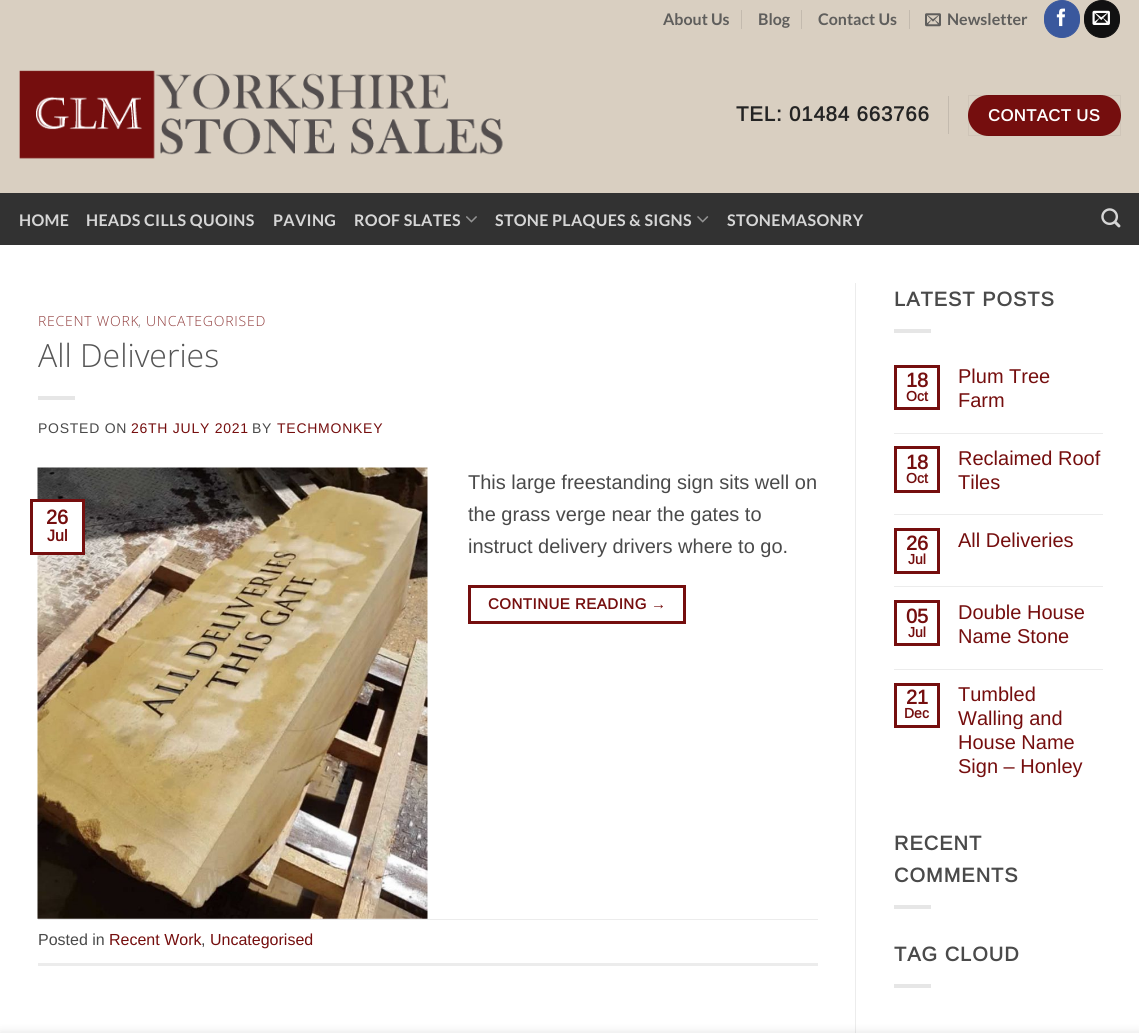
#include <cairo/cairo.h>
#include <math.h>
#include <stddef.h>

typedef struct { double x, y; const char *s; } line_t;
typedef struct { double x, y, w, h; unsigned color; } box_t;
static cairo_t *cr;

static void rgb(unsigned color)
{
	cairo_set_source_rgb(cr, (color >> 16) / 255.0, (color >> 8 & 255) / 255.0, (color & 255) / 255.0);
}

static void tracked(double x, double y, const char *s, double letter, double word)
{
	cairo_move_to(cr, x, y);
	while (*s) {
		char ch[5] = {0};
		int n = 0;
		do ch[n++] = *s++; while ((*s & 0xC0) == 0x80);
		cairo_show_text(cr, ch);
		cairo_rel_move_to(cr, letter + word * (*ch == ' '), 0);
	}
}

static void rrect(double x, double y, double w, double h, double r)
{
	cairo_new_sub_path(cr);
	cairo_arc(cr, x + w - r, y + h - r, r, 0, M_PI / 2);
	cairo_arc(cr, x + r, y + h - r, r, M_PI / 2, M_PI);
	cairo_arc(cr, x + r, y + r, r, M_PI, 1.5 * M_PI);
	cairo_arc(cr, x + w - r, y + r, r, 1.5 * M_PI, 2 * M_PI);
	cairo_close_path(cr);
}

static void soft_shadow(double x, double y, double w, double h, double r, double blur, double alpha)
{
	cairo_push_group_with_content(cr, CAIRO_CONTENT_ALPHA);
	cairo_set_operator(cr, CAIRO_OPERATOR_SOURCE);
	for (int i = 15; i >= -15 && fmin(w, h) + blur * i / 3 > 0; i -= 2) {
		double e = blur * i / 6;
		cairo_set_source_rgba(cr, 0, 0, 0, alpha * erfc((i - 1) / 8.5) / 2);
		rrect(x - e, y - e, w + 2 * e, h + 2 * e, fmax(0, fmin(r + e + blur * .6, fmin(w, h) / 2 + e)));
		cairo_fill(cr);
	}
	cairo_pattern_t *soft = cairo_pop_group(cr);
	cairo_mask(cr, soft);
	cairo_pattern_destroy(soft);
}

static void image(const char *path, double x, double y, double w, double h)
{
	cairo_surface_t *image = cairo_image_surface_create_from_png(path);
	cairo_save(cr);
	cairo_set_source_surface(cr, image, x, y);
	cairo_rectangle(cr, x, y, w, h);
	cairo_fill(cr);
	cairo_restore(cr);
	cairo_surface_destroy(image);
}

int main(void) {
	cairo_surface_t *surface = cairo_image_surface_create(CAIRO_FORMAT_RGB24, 1139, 1033);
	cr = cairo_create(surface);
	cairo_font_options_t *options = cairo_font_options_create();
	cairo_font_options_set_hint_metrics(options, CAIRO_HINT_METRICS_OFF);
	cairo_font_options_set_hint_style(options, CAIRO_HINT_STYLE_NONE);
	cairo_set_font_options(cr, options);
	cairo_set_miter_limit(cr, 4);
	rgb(0xffffff);
	cairo_paint(cr);
	{
		static const box_t items[] = {
			{0, 0, 1139, 193, 0xd9cfc1},
			{741, 10, 1, 19, 0xc3baae},
			{801, 10, 1, 19, 0xc3baae},
			{909, 10, 1, 19, 0xc3baae},
		};
		for (size_t i = 0; i < sizeof items / sizeof *items; i++) {
			rgb(items[i].color);
			cairo_rectangle(cr, items[i].x, items[i].y, items[i].w, items[i].h);
			cairo_fill(cr);
		}
	}
	image("img/1.png", 925, 13, 16, 14);
	rgb(0x3a589d);
	rrect(1044.5, 0.5, 35, 37, 17.5);
	cairo_fill_preserve(cr);
	cairo_set_line_width(cr, 1);
	cairo_stroke(cr);
	image("img/2.png", 1056, 8, 9, 19);
	rgb(0x111111);
	rrect(1084.5, 0.5, 35, 37, 17.5);
	cairo_fill_preserve(cr);
	cairo_stroke(cr);
	image("img/3.png", 1092, 10, 18, 15);
	image("img/4.png", 19, 70, 484, 89);
	rgb(0xc3baae);
	cairo_rectangle(cr, 948, 96, 1, 38);
	cairo_fill(cr);
	rgb(0x750e0e);
	rrect(968, 95, 153, 41, 20.5);
	cairo_fill(cr);
	cairo_rectangle(cr, 968.5, 95.5, 152, 40);
	cairo_set_source_rgba(cr, 0, 0, 0, 0.05);
	cairo_stroke(cr);
	rgb(0x323232);
	cairo_rectangle(cr, 0, 193, 1139, 52);
	cairo_fill(cr);
	image("img/5.png", 466, 216, 11, 7);
	image("img/6.png", 697, 216, 12, 7);
	image("img/7.png", 1101, 208, 20, 20);
	rgb(0xe6e6e6);
	cairo_rectangle(cr, 38, 396, 37, 4);
	cairo_fill(cr);
	image("img/8.png", 37, 467, 391, 452);
	rgb(0xffffff);
	cairo_rectangle(cr, 37, 502, 45, 50);
	cairo_fill(cr);
	cairo_rectangle(cr, 31.5, 500.5, 52, 53);
	rgb(0x750e0e);
	cairo_set_line_width(cr, 3);
	cairo_stroke(cr);
	cairo_rectangle(cr, 469.5, 586.5, 215, 36);
	cairo_stroke(cr);
	{
		static const box_t items[] = {
			{38, 919, 780, 1, 0xececec},
			{38, 963, 780, 3, 0xececec},
			{855, 283, 1, 750, 0xececec},
			{894, 329, 37, 4, 0xe6e6e6},
		};
		for (size_t i = 0; i < sizeof items / sizeof *items; i++) {
			rgb(items[i].color);
			cairo_rectangle(cr, items[i].x, items[i].y, items[i].w, items[i].h);
			cairo_fill(cr);
		}
	}
	cairo_rectangle(cr, 895.5, 366.5, 43, 42);
	rgb(0x750e0e);
	cairo_stroke(cr);
	rgb(0xececec);
	cairo_rectangle(cr, 894, 433, 209, 1);
	cairo_fill(cr);
	cairo_rectangle(cr, 895.5, 447.5, 43, 44);
	rgb(0x750e0e);
	cairo_stroke(cr);
	rgb(0xececec);
	cairo_rectangle(cr, 894, 514, 209, 1);
	cairo_fill(cr);
	cairo_rectangle(cr, 895.5, 529.5, 43, 43);
	rgb(0x750e0e);
	cairo_stroke(cr);
	rgb(0xececec);
	cairo_rectangle(cr, 894, 586, 209, 1);
	cairo_fill(cr);
	cairo_rectangle(cr, 895.5, 601.5, 43, 43);
	rgb(0x750e0e);
	cairo_stroke(cr);
	rgb(0xececec);
	cairo_rectangle(cr, 894, 669, 209, 1);
	cairo_fill(cr);
	cairo_rectangle(cr, 895.5, 684.5, 43, 42);
	rgb(0x750e0e);
	cairo_stroke(cr);
	rgb(0xe6e6e6);
	cairo_rectangle(cr, 894, 905, 37, 4);
	cairo_fill(cr);
	cairo_rectangle(cr, 894, 984, 37, 4);
	cairo_fill(cr);
	rgb(0x000000);
	soft_shadow(0, 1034, 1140, 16, 0, 5.5, 0.14);
	cairo_select_font_face(cr, "Lato", CAIRO_FONT_SLANT_NORMAL, CAIRO_FONT_WEIGHT_BOLD);
	cairo_set_font_size(cr, 16);
	rgb(0x5f5e5c);
	{
		static const line_t items[] = {
			{663, 25, "About Us"},
			{758, 25, "Blog"},
			{818, 25, "Contact Us"},
			{947, 25, "Newsletter"},
		};
		for (size_t i = 0; i < sizeof items / sizeof *items; i++) {
			cairo_move_to(cr, items[i].x, items[i].y);
			cairo_show_text(cr, items[i].s);
		}
	}
	cairo_select_font_face(cr, "Arimo", CAIRO_FONT_SLANT_NORMAL, CAIRO_FONT_WEIGHT_BOLD);
	cairo_set_font_size(cr, 20.5);
	rgb(0x242424);
	tracked(736, 121, "TEL: 01484 663766", 0.8, 0);
	cairo_set_font_size(cr, 16.5);
	rgb(0xffffff);
	tracked(988, 121, "CONTACT US", 0.5, 0);
	cairo_select_font_face(cr, "Lato", CAIRO_FONT_SLANT_NORMAL, CAIRO_FONT_WEIGHT_BOLD);
	cairo_set_font_size(cr, 16);
	rgb(0xd6d6d6);
	{
		static const line_t items[] = {
			{19, 226, "HOME"},
			{86, 226, "HEADS CILLS QUOINS"},
			{273, 226, "PAVING"},
			{354, 226, "ROOF SLATES"},
			{495, 226, "STONE PLAQUES & SIGNS"},
			{727, 226, "STONEMASONRY"},
		};
		for (size_t i = 0; i < sizeof items / sizeof *items; i++) {
			tracked(items[i].x, items[i].y, items[i].s, 0.3, 0);
		}
	}
	cairo_select_font_face(cr, "Open Sans Light", CAIRO_FONT_SLANT_NORMAL, CAIRO_FONT_WEIGHT_NORMAL);
	cairo_set_font_size(cr, 14);
	rgb(0x913e3e);
	tracked(38, 326, "RECENT WORK", 0.75, 0);
	rgb(0x777777);
	tracked(138, 326, ",", 0.75, 0);
	rgb(0x913e3e);
	tracked(146, 326, "UNCATEGORISED", 0.75, 0);
	cairo_set_font_size(cr, 32);
	rgb(0x555555);
	cairo_move_to(cr, 38, 367);
	cairo_show_text(cr, "All Deliveries");
	cairo_select_font_face(cr, "Arimo", CAIRO_FONT_SLANT_NORMAL, CAIRO_FONT_WEIGHT_NORMAL);
	cairo_set_font_size(cr, 14);
	rgb(0x4a4a4a);
	tracked(38, 433, "POSTED ON", 0.75, 0);
	rgb(0x750e0e);
	tracked(131, 433, "26TH JULY 2021", 0.75, 0);
	rgb(0x4a4a4a);
	tracked(252, 433, "BY", 0.75, 0);
	rgb(0x750e0e);
	tracked(277, 433, "TECHMONKEY", 0.75, 0);
	cairo_select_font_face(cr, "Arimo", CAIRO_FONT_SLANT_NORMAL, CAIRO_FONT_WEIGHT_BOLD);
	cairo_set_font_size(cr, 20);
	cairo_move_to(cr, 46, 524);
	cairo_show_text(cr, "26");
	cairo_set_font_size(cr, 16);
	cairo_move_to(cr, 47, 541);
	cairo_show_text(cr, "Jul");
	cairo_select_font_face(cr, "Arimo", CAIRO_FONT_SLANT_NORMAL, CAIRO_FONT_WEIGHT_NORMAL);
	cairo_set_font_size(cr, 20);
	rgb(0x4a4a4a);
	{
		static const line_t items[] = {
			{468, 489, "This large freestanding sign sits well on"},
			{468, 521, "the grass verge near the gates to"},
			{468, 553, "instruct delivery drivers where to go."},
		};
		for (size_t i = 0; i < sizeof items / sizeof *items; i++) {
			cairo_move_to(cr, items[i].x, items[i].y);
			cairo_show_text(cr, items[i].s);
		}
	}
	cairo_select_font_face(cr, "Arimo", CAIRO_FONT_SLANT_NORMAL, CAIRO_FONT_WEIGHT_BOLD);
	cairo_set_font_size(cr, 15);
	rgb(0x750e0e);
	tracked(488, 609, "CONTINUE READING", 0.5, 0);
	cairo_select_font_face(cr, "Liberation Sans", CAIRO_FONT_SLANT_NORMAL, CAIRO_FONT_WEIGHT_BOLD);
	tracked(651, 609, "→", 0.5, 0);
	cairo_select_font_face(cr, "Arimo", CAIRO_FONT_SLANT_NORMAL, CAIRO_FONT_WEIGHT_NORMAL);
	cairo_set_font_size(cr, 16);
	rgb(0x4a4a4a);
	cairo_move_to(cr, 38, 945);
	cairo_show_text(cr, "Posted in");
	rgb(0x750e0e);
	cairo_move_to(cr, 109, 945);
	cairo_show_text(cr, "Recent Work");
	rgb(0x4a4a4a);
	cairo_move_to(cr, 201, 945);
	cairo_show_text(cr, ",");
	rgb(0x750e0e);
	cairo_move_to(cr, 210, 945);
	cairo_show_text(cr, "Uncategorised");
	cairo_select_font_face(cr, "Arimo", CAIRO_FONT_SLANT_NORMAL, CAIRO_FONT_WEIGHT_BOLD);
	cairo_set_font_size(cr, 20);
	rgb(0x4a4a4a);
	tracked(894, 306, "LATEST POSTS", 1, 0);
	rgb(0x750e0e);
	cairo_move_to(cr, 906, 387);
	cairo_show_text(cr, "18");
	cairo_set_font_size(cr, 14);
	cairo_move_to(cr, 906, 401);
	cairo_show_text(cr, "Oct");
	cairo_select_font_face(cr, "Arimo", CAIRO_FONT_SLANT_NORMAL, CAIRO_FONT_WEIGHT_NORMAL);
	cairo_set_font_size(cr, 20);
	cairo_move_to(cr, 958, 383);
	cairo_show_text(cr, "Plum Tree");
	cairo_move_to(cr, 958, 407);
	cairo_show_text(cr, "Farm");
	cairo_select_font_face(cr, "Arimo", CAIRO_FONT_SLANT_NORMAL, CAIRO_FONT_WEIGHT_BOLD);
	cairo_move_to(cr, 906, 469);
	cairo_show_text(cr, "18");
	cairo_set_font_size(cr, 14);
	cairo_move_to(cr, 906, 483);
	cairo_show_text(cr, "Oct");
	cairo_select_font_face(cr, "Arimo", CAIRO_FONT_SLANT_NORMAL, CAIRO_FONT_WEIGHT_NORMAL);
	cairo_set_font_size(cr, 20);
	cairo_move_to(cr, 958, 465);
	cairo_show_text(cr, "Reclaimed Roof");
	cairo_move_to(cr, 958, 489);
	cairo_show_text(cr, "Tiles");
	cairo_select_font_face(cr, "Arimo", CAIRO_FONT_SLANT_NORMAL, CAIRO_FONT_WEIGHT_BOLD);
	cairo_move_to(cr, 906, 550);
	cairo_show_text(cr, "26");
	cairo_set_font_size(cr, 14);
	cairo_move_to(cr, 908, 564);
	cairo_show_text(cr, "Jul");
	cairo_select_font_face(cr, "Arimo", CAIRO_FONT_SLANT_NORMAL, CAIRO_FONT_WEIGHT_NORMAL);
	cairo_set_font_size(cr, 20);
	cairo_move_to(cr, 958, 547);
	cairo_show_text(cr, "All Deliveries");
	cairo_select_font_face(cr, "Arimo", CAIRO_FONT_SLANT_NORMAL, CAIRO_FONT_WEIGHT_BOLD);
	cairo_move_to(cr, 906, 623);
	cairo_show_text(cr, "05");
	cairo_set_font_size(cr, 14);
	cairo_move_to(cr, 908, 637);
	cairo_show_text(cr, "Jul");
	cairo_select_font_face(cr, "Arimo", CAIRO_FONT_SLANT_NORMAL, CAIRO_FONT_WEIGHT_NORMAL);
	cairo_set_font_size(cr, 20);
	cairo_move_to(cr, 958, 619);
	cairo_show_text(cr, "Double House");
	cairo_move_to(cr, 958, 643);
	cairo_show_text(cr, "Name Stone");
	cairo_select_font_face(cr, "Arimo", CAIRO_FONT_SLANT_NORMAL, CAIRO_FONT_WEIGHT_BOLD);
	cairo_move_to(cr, 906, 704);
	cairo_show_text(cr, "21");
	cairo_set_font_size(cr, 14);
	cairo_move_to(cr, 904, 718);
	cairo_show_text(cr, "Dec");
	cairo_select_font_face(cr, "Arimo", CAIRO_FONT_SLANT_NORMAL, CAIRO_FONT_WEIGHT_NORMAL);
	cairo_set_font_size(cr, 20);
	{
		static const line_t items[] = {
			{958, 701, "Tumbled"},
			{958, 725, "Walling and"},
			{958, 749, "House Name"},
			{958, 773, "Sign – Honley"},
		};
		for (size_t i = 0; i < sizeof items / sizeof *items; i++) {
			cairo_move_to(cr, items[i].x, items[i].y);
			cairo_show_text(cr, items[i].s);
		}
	}
	cairo_select_font_face(cr, "Arimo", CAIRO_FONT_SLANT_NORMAL, CAIRO_FONT_WEIGHT_BOLD);
	rgb(0x4a4a4a);
	{
		static const line_t items[] = {
			{894, 850, "RECENT"},
			{894, 882, "COMMENTS"},
			{894, 961, "TAG CLOUD"},
		};
		for (size_t i = 0; i < sizeof items / sizeof *items; i++) {
			tracked(items[i].x, items[i].y, items[i].s, 1, 0);
		}
	}
	cairo_surface_write_to_png(surface, "page.png");
	cairo_font_options_destroy(options);
	cairo_destroy(cr);
	cairo_surface_destroy(surface);
	return 0;
}
